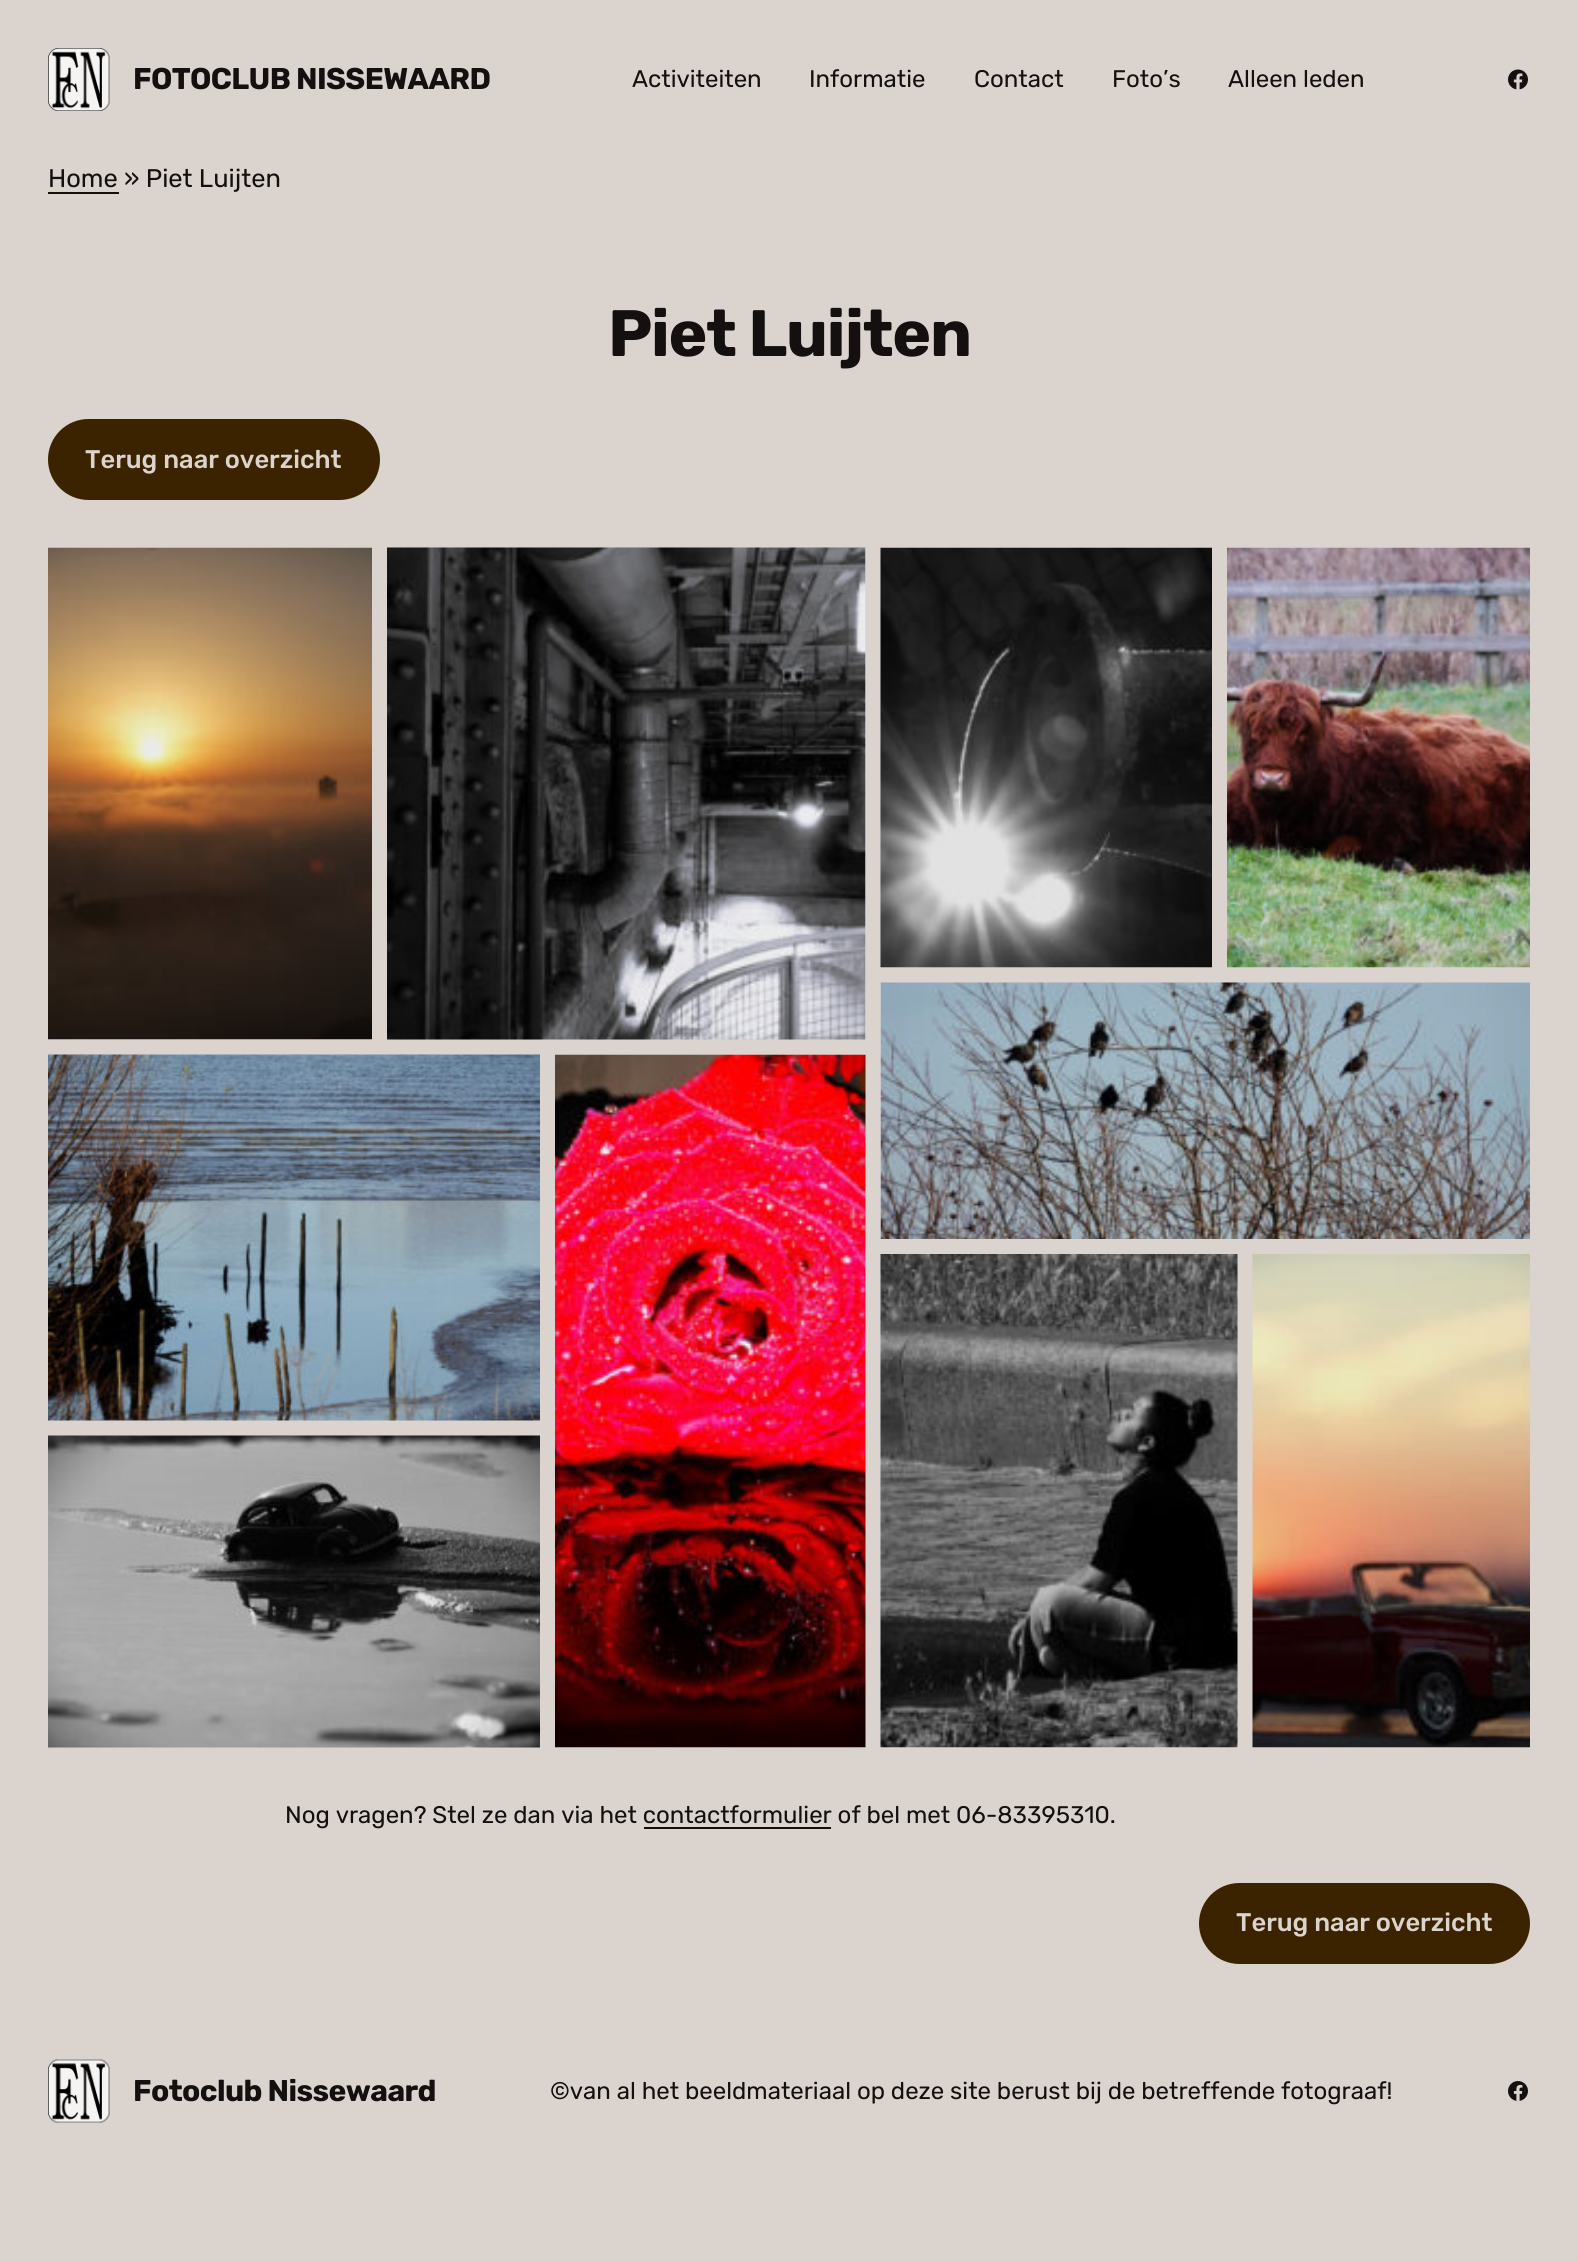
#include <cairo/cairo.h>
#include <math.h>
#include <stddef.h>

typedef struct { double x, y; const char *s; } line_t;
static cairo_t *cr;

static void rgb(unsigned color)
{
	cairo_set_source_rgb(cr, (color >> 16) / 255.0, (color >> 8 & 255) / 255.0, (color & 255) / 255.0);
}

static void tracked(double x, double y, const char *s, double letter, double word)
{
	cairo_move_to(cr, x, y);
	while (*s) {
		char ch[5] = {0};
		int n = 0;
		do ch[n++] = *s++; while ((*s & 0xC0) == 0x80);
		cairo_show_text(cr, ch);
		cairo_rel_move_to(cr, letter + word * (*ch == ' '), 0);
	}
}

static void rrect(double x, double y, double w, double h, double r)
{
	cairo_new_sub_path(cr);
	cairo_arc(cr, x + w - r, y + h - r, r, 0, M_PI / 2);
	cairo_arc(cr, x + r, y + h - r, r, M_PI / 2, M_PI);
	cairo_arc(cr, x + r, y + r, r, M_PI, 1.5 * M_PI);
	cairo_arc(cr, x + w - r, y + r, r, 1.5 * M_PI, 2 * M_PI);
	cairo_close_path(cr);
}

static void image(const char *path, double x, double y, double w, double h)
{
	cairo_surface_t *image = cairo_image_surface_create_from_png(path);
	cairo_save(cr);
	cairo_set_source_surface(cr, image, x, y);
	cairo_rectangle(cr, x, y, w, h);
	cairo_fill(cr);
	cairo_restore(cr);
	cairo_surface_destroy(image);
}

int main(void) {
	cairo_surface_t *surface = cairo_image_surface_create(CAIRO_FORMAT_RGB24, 1578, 2262);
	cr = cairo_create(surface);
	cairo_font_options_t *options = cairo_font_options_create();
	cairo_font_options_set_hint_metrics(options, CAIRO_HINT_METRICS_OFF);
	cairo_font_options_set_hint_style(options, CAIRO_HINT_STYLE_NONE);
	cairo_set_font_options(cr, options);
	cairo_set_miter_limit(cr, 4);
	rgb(0xdbd3ce);
	cairo_paint(cr);
	image("img/1.png", 48, 48, 62, 63);
	image("img/2.png", 1508, 69, 20, 21);
	rgb(0x13100f);
	cairo_rectangle(cr, 48, 192, 71, 2);
	cairo_fill(cr);
	rgb(0x3b2300);
	rrect(48, 419, 332, 81, 40.5);
	cairo_fill(cr);
	image("img/3.png", 48, 547, 324, 493);
	image("img/4.png", 387, 547, 479, 493);
	image("img/5.png", 880, 547, 332, 421);
	image("img/6.png", 1227, 547, 303, 421);
	image("img/7.png", 48, 1054, 492, 367);
	image("img/8.png", 555, 1054, 311, 694);
	image("img/9.png", 880, 982, 650, 257);
	image("img/10.png", 48, 1435, 492, 313);
	image("img/11.png", 880, 1254, 358, 494);
	image("img/12.png", 1252, 1254, 278, 494);
	rgb(0x13100f);
	cairo_rectangle(cr, 644, 1827, 187, 2);
	cairo_fill(cr);
	rgb(0x3b2300);
	rrect(1199, 1883, 331, 81, 40.5);
	cairo_fill(cr);
	image("img/13.png", 48, 2059, 62, 64);
	image("img/14.png", 1508, 2081, 20, 20);
	cairo_select_font_face(cr, "Rubik", CAIRO_FONT_SLANT_NORMAL, CAIRO_FONT_WEIGHT_BOLD);
	cairo_set_font_size(cr, 30);
	rgb(0x13100f);
	tracked(133, 89, "FOTOCLUB NISSEWAARD", -0.6, 0);
	cairo_select_font_face(cr, "Rubik", CAIRO_FONT_SLANT_NORMAL, CAIRO_FONT_WEIGHT_NORMAL);
	cairo_set_font_size(cr, 24);
	{
		static const line_t items[] = {
			{632, 87, "Activiteiten"},
			{809, 87, "Informatie"},
			{974, 87, "Contact"},
			{1112, 87, "Foto’s"},
			{1228, 87, "Alleen leden"},
		};
		for (size_t i = 0; i < sizeof items / sizeof *items; i++) {
			cairo_move_to(cr, items[i].x, items[i].y);
			cairo_show_text(cr, items[i].s);
		}
	}
	cairo_set_font_size(cr, 25.5);
	cairo_move_to(cr, 48, 187);
	cairo_show_text(cr, "Home » Piet Luijten");
	cairo_select_font_face(cr, "Rubik", CAIRO_FONT_SLANT_NORMAL, CAIRO_FONT_WEIGHT_BOLD);
	cairo_set_font_size(cr, 65.5);
	tracked(608, 356, "Piet Luijten", -1.25, 0);
	cairo_select_font_face(cr, "Rubik Medium", CAIRO_FONT_SLANT_NORMAL, CAIRO_FONT_WEIGHT_NORMAL);
	cairo_set_font_size(cr, 25.5);
	rgb(0xdbd3ce);
	cairo_move_to(cr, 85, 468);
	cairo_show_text(cr, "Terug naar overzicht");
	cairo_select_font_face(cr, "Rubik", CAIRO_FONT_SLANT_NORMAL, CAIRO_FONT_WEIGHT_NORMAL);
	cairo_set_font_size(cr, 24);
	rgb(0x13100f);
	cairo_move_to(cr, 285, 1823);
	cairo_show_text(cr, "Nog vragen? Stel ze dan via het contactformulier of bel met 06-83395310.");
	cairo_select_font_face(cr, "Rubik Medium", CAIRO_FONT_SLANT_NORMAL, CAIRO_FONT_WEIGHT_NORMAL);
	cairo_set_font_size(cr, 25.5);
	rgb(0xdbd3ce);
	cairo_move_to(cr, 1236, 1931);
	cairo_show_text(cr, "Terug naar overzicht");
	cairo_select_font_face(cr, "Rubik", CAIRO_FONT_SLANT_NORMAL, CAIRO_FONT_WEIGHT_BOLD);
	cairo_set_font_size(cr, 30);
	rgb(0x13100f);
	tracked(133, 2101, "Fotoclub Nissewaard", -0.6, 0);
	cairo_select_font_face(cr, "Rubik", CAIRO_FONT_SLANT_NORMAL, CAIRO_FONT_WEIGHT_NORMAL);
	cairo_set_font_size(cr, 24);
	cairo_move_to(cr, 550, 2099);
	cairo_show_text(cr, "©van al het beeldmateriaal op deze site berust bij de betreffende fotograaf!");
	cairo_surface_write_to_png(surface, "page.png");
	cairo_font_options_destroy(options);
	cairo_destroy(cr);
	cairo_surface_destroy(surface);
	return 0;
}
